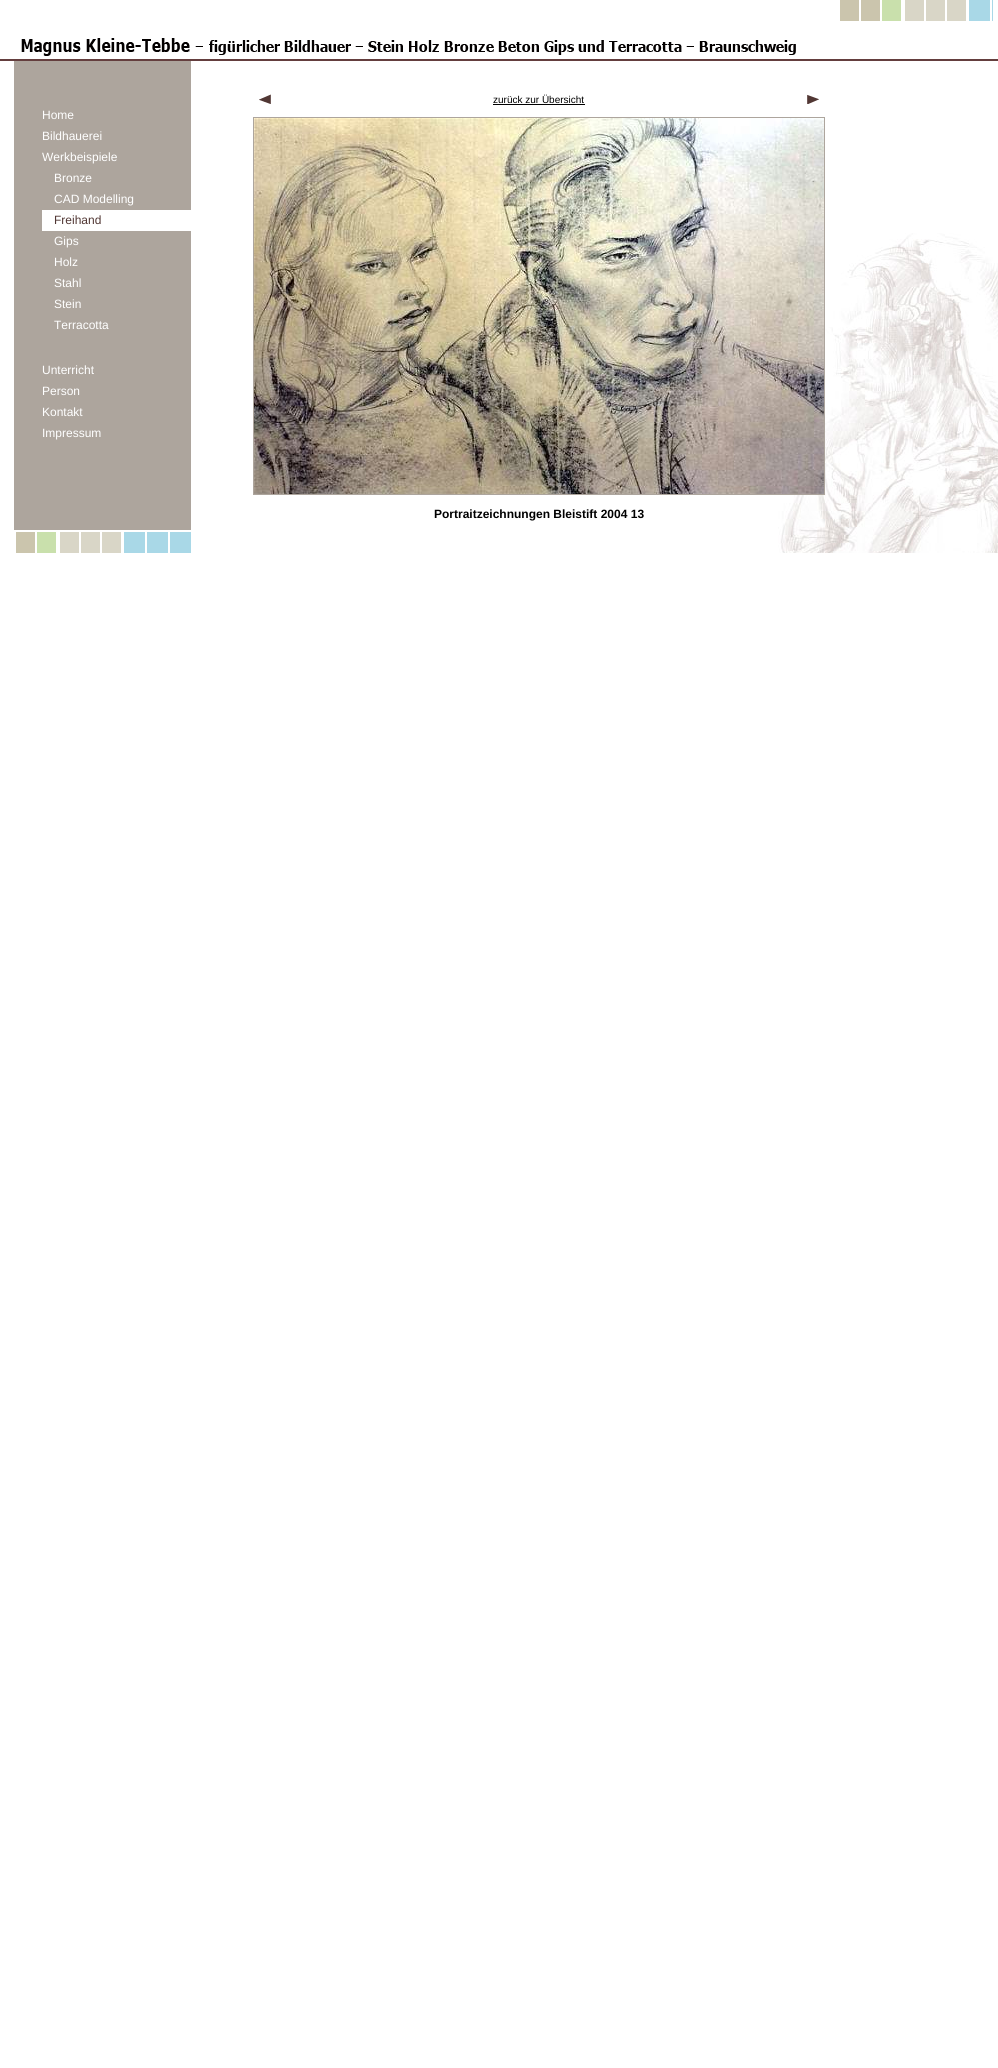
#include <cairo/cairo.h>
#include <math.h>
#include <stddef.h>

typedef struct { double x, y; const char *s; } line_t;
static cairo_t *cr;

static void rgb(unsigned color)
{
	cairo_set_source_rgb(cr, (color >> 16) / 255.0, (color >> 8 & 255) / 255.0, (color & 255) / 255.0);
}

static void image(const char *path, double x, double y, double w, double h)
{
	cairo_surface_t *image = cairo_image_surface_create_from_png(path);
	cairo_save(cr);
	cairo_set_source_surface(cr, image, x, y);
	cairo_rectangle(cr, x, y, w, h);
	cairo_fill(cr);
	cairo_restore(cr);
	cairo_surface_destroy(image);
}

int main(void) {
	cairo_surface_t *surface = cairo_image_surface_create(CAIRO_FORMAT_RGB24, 998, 2068);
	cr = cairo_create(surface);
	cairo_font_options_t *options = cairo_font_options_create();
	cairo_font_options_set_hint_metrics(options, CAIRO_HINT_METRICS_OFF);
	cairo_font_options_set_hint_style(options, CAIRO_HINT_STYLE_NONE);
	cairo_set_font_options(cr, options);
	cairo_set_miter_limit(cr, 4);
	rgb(0xffffff);
	cairo_paint(cr);
	rgb(0x643e3e);
	cairo_rectangle(cr, 0, 59, 998, 2);
	cairo_fill(cr);
	image("img/1.png", 21, 0, 972, 56);
	image("img/2.png", 14, 61, 177, 492);
	rgb(0xffffff);
	cairo_rectangle(cr, 42, 210, 149, 21);
	cairo_fill(cr);
	image("img/3.png", 778, 233, 220, 320);
	image("img/4.png", 259, 94, 12, 10);
	rgb(0x000000);
	cairo_rectangle(cr, 493, 104, 92, 1);
	cairo_fill(cr);
	image("img/5.png", 807, 94, 12, 10);
	cairo_rectangle(cr, 253.5, 117.5, 571, 377);
	rgb(0xada59d);
	cairo_set_line_width(cr, 1);
	cairo_stroke(cr);
	image("img/6.png", 254, 118, 570, 376);
	cairo_select_font_face(cr, "Liberation Sans", CAIRO_FONT_SLANT_NORMAL, CAIRO_FONT_WEIGHT_NORMAL);
	cairo_set_font_size(cr, 12);
	rgb(0xffffff);
	{
		static const line_t items[] = {
			{42, 119, "Home"},
			{42, 140, "Bildhauerei"},
			{42, 161, "Werkbeispiele"},
			{54, 182, "Bronze"},
			{54, 203, "CAD Modelling"},
		};
		for (size_t i = 0; i < sizeof items / sizeof *items; i++) {
			cairo_move_to(cr, items[i].x, items[i].y);
			cairo_show_text(cr, items[i].s);
		}
	}
	rgb(0x513734);
	cairo_move_to(cr, 54, 224);
	cairo_show_text(cr, "Freihand");
	rgb(0xffffff);
	{
		static const line_t items[] = {
			{54, 245, "Gips"},
			{54, 266, "Holz"},
			{54, 287, "Stahl"},
			{54, 308, "Stein"},
			{54, 329, "Terracotta"},
			{42, 374, "Unterricht"},
			{42, 395, "Person"},
			{42, 416, "Kontakt"},
			{42, 437, "Impressum"},
		};
		for (size_t i = 0; i < sizeof items / sizeof *items; i++) {
			cairo_move_to(cr, items[i].x, items[i].y);
			cairo_show_text(cr, items[i].s);
		}
	}
	cairo_set_font_size(cr, 10);
	rgb(0x000000);
	cairo_move_to(cr, 493, 103);
	cairo_show_text(cr, "zurück zur Übersicht");
	cairo_select_font_face(cr, "Liberation Sans", CAIRO_FONT_SLANT_NORMAL, CAIRO_FONT_WEIGHT_BOLD);
	cairo_set_font_size(cr, 12);
	cairo_move_to(cr, 434, 518);
	cairo_show_text(cr, "Portraitzeichnungen Bleistift 2004 13");
	cairo_surface_write_to_png(surface, "page.png");
	cairo_font_options_destroy(options);
	cairo_destroy(cr);
	cairo_surface_destroy(surface);
	return 0;
}
